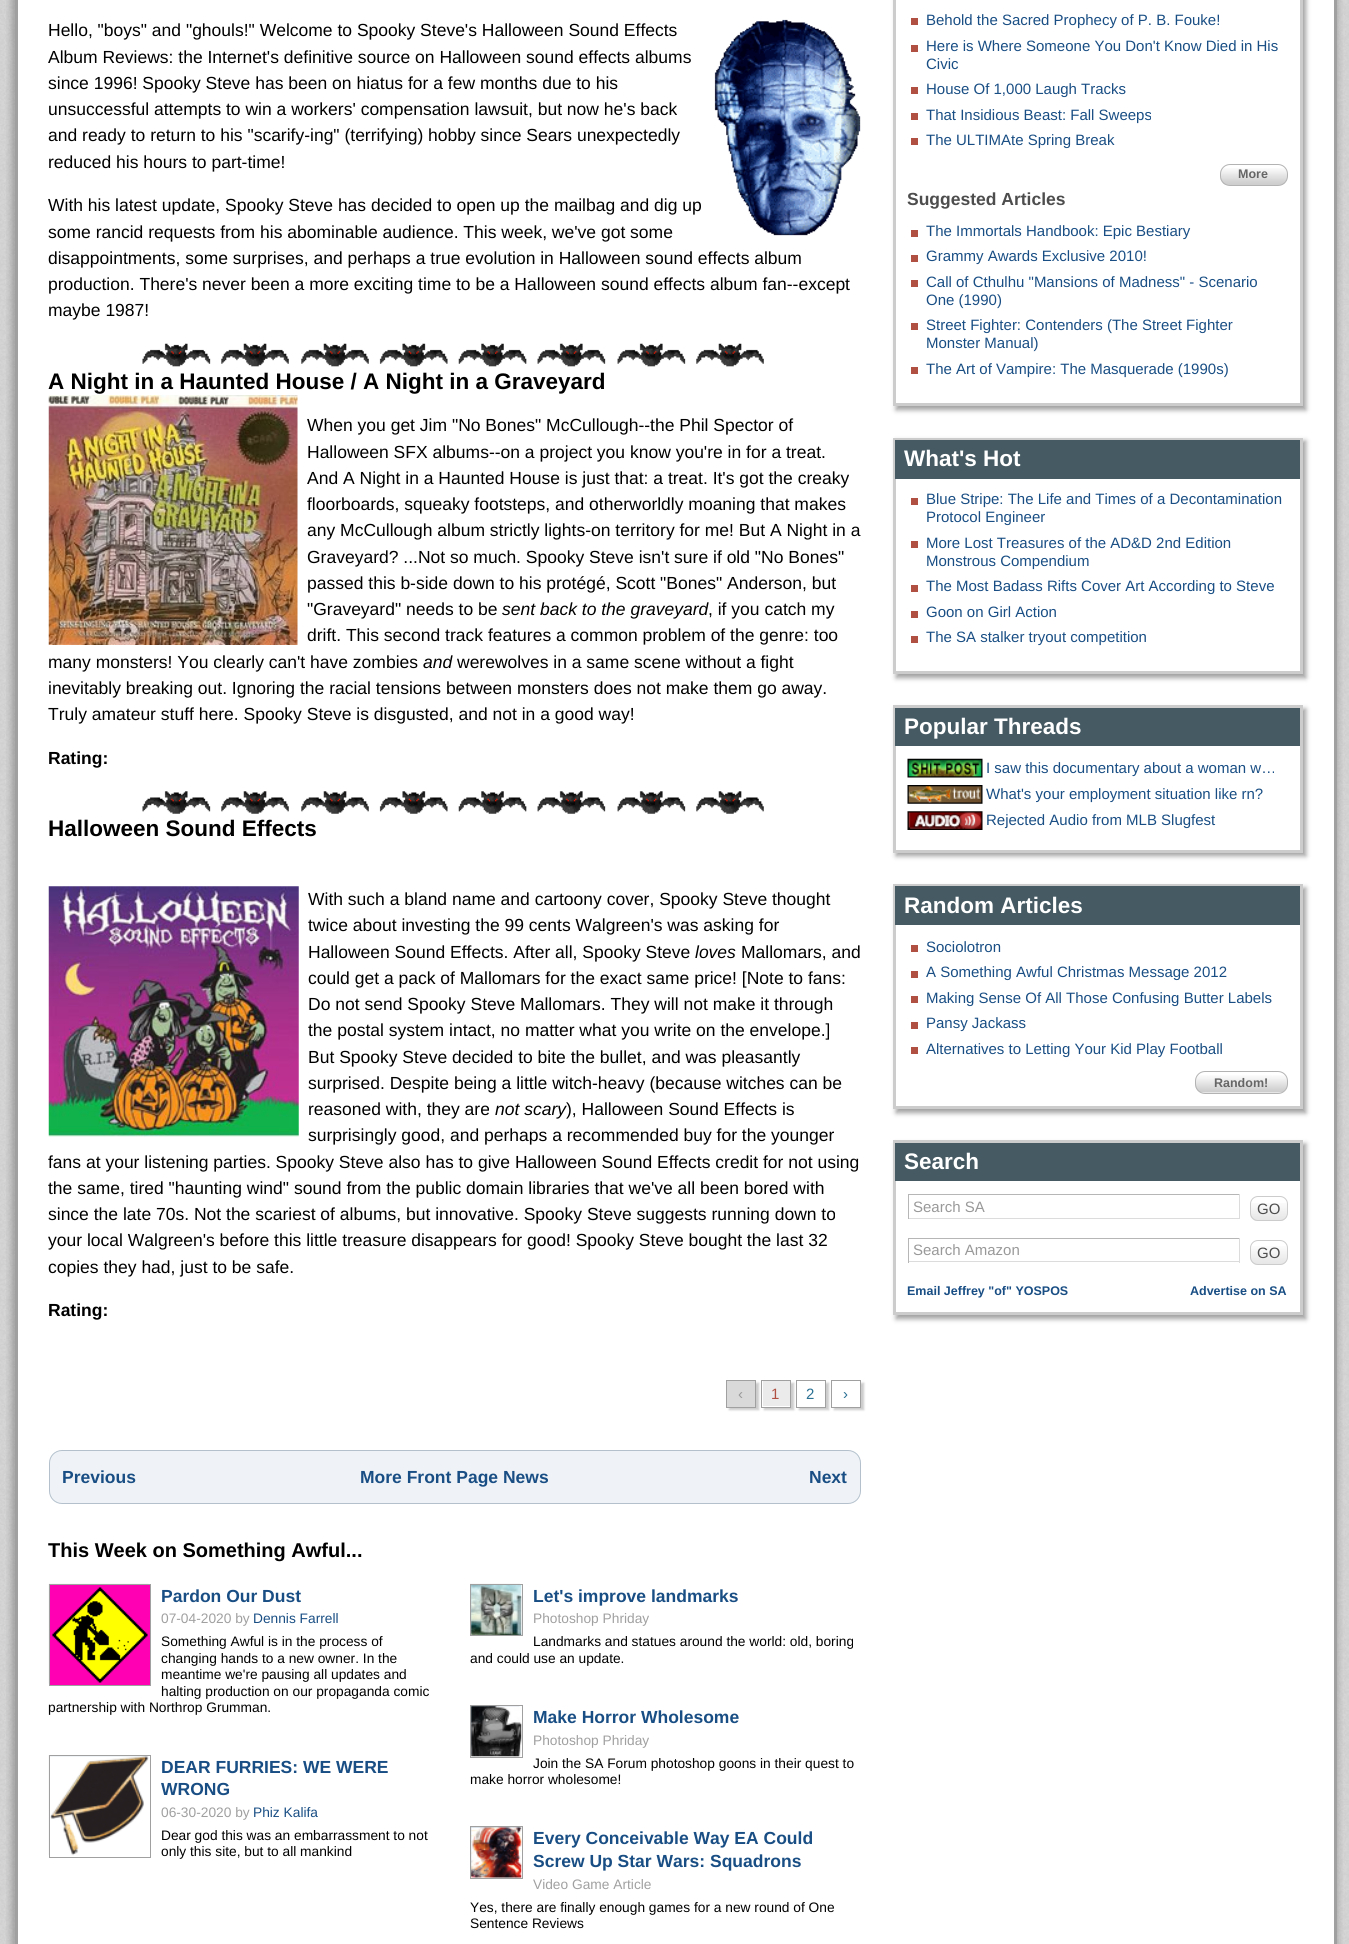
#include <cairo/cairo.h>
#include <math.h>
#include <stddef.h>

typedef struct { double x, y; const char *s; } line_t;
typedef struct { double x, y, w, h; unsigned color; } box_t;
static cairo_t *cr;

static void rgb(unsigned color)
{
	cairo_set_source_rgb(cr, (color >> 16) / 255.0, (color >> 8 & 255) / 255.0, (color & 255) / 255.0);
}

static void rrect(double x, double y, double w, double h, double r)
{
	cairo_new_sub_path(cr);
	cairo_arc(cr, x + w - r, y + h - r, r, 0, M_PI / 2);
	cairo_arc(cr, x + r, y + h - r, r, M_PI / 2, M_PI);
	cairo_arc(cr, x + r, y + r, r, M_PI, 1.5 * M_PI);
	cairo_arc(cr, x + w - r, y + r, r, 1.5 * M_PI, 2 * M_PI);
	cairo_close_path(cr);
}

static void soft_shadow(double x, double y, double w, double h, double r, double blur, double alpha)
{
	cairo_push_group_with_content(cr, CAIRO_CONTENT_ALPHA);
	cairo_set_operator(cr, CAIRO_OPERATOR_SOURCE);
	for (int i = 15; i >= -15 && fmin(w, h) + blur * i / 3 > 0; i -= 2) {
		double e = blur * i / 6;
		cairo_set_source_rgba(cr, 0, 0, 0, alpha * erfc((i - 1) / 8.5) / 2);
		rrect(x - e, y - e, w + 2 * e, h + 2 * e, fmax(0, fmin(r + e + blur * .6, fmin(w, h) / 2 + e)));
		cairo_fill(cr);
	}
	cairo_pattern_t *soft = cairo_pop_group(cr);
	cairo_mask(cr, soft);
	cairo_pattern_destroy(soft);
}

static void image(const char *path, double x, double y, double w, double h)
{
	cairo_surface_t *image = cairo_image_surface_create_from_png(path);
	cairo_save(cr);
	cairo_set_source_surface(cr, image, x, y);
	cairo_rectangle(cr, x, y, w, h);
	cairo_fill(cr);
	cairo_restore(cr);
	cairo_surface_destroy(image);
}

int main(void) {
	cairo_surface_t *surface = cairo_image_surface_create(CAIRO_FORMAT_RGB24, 1349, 1944);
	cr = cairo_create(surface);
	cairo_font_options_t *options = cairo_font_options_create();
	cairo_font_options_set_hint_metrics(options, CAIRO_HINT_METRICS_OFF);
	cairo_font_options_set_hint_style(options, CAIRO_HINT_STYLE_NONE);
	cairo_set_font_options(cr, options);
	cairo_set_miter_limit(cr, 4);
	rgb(0xffffff);
	cairo_paint(cr);
	image("img/1.png", 0, 0, 1349, 1944);
	image("img/2.png", 6, 0, 1337, 1944);
	{
		static const box_t items[] = {
			{18, 0, 1316, 1944, 0xffffff},
			{1334, 0, 3, 1944, 0xa0a0a0},
			{15, 0, 3, 1944, 0xa0a0a0},
		};
		for (size_t i = 0; i < sizeof items / sizeof *items; i++) {
			rgb(items[i].color);
			cairo_rectangle(cr, items[i].x, items[i].y, items[i].w, items[i].h);
			cairo_fill(cr);
		}
	}
	image("img/3.png", 714, 19, 147, 217);
	image("img/4.png", 142, 343, 622, 24);
	image("img/5.png", 48, 395, 250, 250);
	image("img/6.png", 142, 791, 622, 23);
	image("img/7.png", 48, 886, 251, 251);
	rgb(0xcccccc);
	soft_shadow(729, 1383, 30, 27, 0, 1, 1);
	rgb(0xd9d9d9);
	cairo_rectangle(cr, 726.5, 1380.5, 29, 27);
	cairo_fill_preserve(cr);
	rgb(0xa0a0a0);
	cairo_set_line_width(cr, 1);
	cairo_stroke(cr);
	rgb(0xcccccc);
	soft_shadow(764, 1383, 30, 27, 0, 1, 1);
	rgb(0xffffff);
	cairo_rectangle(cr, 761.5, 1380.5, 29, 27);
	cairo_fill_preserve(cr);
	rgb(0xa0a0a0);
	cairo_stroke(cr);
	rgb(0xebebeb);
	cairo_rectangle(cr, 763, 1381, 27, 25);
	cairo_fill(cr);
	rgb(0xcccccc);
	soft_shadow(799, 1383, 30, 27, 0, 1, 1);
	rgb(0xffffff);
	cairo_rectangle(cr, 796.5, 1380.5, 29, 27);
	cairo_fill_preserve(cr);
	rgb(0xa0a0a0);
	cairo_stroke(cr);
	rgb(0xcccccc);
	soft_shadow(834, 1383, 30, 27, 0, 1, 1);
	rgb(0xffffff);
	cairo_rectangle(cr, 831.5, 1380.5, 29, 27);
	cairo_fill_preserve(cr);
	rgb(0xa0a0a0);
	cairo_stroke(cr);
	rgb(0xeff3f7);
	rrect(49.5, 1450.5, 811, 53, 12.5);
	cairo_fill_preserve(cr);
	rgb(0xb4c1cd);
	cairo_stroke(cr);
	image("img/8.png", 48, 1583, 101, 101);
	cairo_rectangle(cr, 49.5, 1584.5, 101, 101);
	rgb(0xa0a0a0);
	cairo_stroke(cr);
	image("img/9.png", 50, 1585, 100, 100);
	image("img/10.png", 48, 1755, 101, 100);
	cairo_rectangle(cr, 49.5, 1755.5, 101, 102);
	cairo_stroke(cr);
	image("img/11.png", 50, 1756, 99, 100);
	image("img/12.png", 470, 1583, 50, 51);
	cairo_rectangle(cr, 470.5, 1584.5, 52, 51);
	cairo_stroke(cr);
	image("img/13.png", 471, 1585, 51, 50);
	image("img/14.png", 471, 1706, 49, 49);
	cairo_rectangle(cr, 470.5, 1705.5, 52, 52);
	cairo_stroke(cr);
	image("img/15.png", 471, 1706, 51, 51);
	image("img/16.png", 471, 1827, 49, 50);
	cairo_rectangle(cr, 470.5, 1826.5, 52, 52);
	cairo_stroke(cr);
	image("img/17.png", 471, 1827, 51, 51);
	cairo_save(cr);
	cairo_set_fill_rule(cr, CAIRO_FILL_RULE_EVEN_ODD);
	cairo_new_path(cr);
	cairo_move_to(cr, 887, 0);
	cairo_line_to(cr, 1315, 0);
	cairo_line_to(cr, 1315, 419);
	cairo_line_to(cr, 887, 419);
	cairo_close_path(cr);
	cairo_move_to(cr, 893, -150);
	cairo_line_to(cr, 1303, -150);
	cairo_line_to(cr, 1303, 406);
	cairo_line_to(cr, 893, 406);
	cairo_close_path(cr);
	cairo_clip(cr);
	rgb(0xa0a0a0);
	soft_shadow(896, -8, 410, 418, 0, 2.5, 1);
	cairo_restore(cr);
	cairo_rectangle(cr, 894.5, -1.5, 407, 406);
	rgb(0xcccccc);
	cairo_set_line_width(cr, 3);
	cairo_stroke(cr);
	{
		static const box_t items[] = {
			{911, 18, 7, 7, 0xb05042},
			{911, 45, 7, 7, 0xb05042},
			{911, 87, 7, 7, 0xb05042},
			{911, 113, 7, 7, 0xb05042},
			{911, 138, 7, 7, 0xb05042},
		};
		for (size_t i = 0; i < sizeof items / sizeof *items; i++) {
			rgb(items[i].color);
			cairo_rectangle(cr, items[i].x, items[i].y, items[i].w, items[i].h);
			cairo_fill(cr);
		}
	}
	image("img/18.png", 1220, 168, 68, 17);
	rrect(1220.5, 164.5, 67, 21, 9.5);
	rgb(0xb3b3b3);
	cairo_set_line_width(cr, 1);
	cairo_stroke(cr);
	{
		static const box_t items[] = {
			{911, 230, 7, 7, 0xb05042},
			{911, 255, 7, 7, 0xb05042},
			{911, 280, 7, 7, 0xb05042},
			{911, 323, 7, 7, 0xb05042},
			{911, 367, 7, 7, 0xb05042},
		};
		for (size_t i = 0; i < sizeof items / sizeof *items; i++) {
			rgb(items[i].color);
			cairo_rectangle(cr, items[i].x, items[i].y, items[i].w, items[i].h);
			cairo_fill(cr);
		}
	}
	cairo_save(cr);
	cairo_set_fill_rule(cr, CAIRO_FILL_RULE_EVEN_ODD);
	cairo_new_path(cr);
	cairo_move_to(cr, 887, 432);
	cairo_line_to(cr, 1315, 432);
	cairo_line_to(cr, 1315, 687);
	cairo_line_to(cr, 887, 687);
	cairo_close_path(cr);
	cairo_move_to(cr, 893, 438);
	cairo_line_to(cr, 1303, 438);
	cairo_line_to(cr, 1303, 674);
	cairo_line_to(cr, 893, 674);
	cairo_close_path(cr);
	cairo_clip(cr);
	rgb(0xa0a0a0);
	soft_shadow(896, 441, 410, 237, 0, 2.5, 1);
	cairo_restore(cr);
	cairo_rectangle(cr, 894.5, 439.5, 407, 233);
	rgb(0xcccccc);
	cairo_set_line_width(cr, 3);
	cairo_stroke(cr);
	{
		static const box_t items[] = {
			{895, 440, 405, 39, 0x455a63},
			{911, 498, 7, 7, 0xb05042},
			{911, 541, 7, 7, 0xb05042},
			{911, 585, 7, 7, 0xb05042},
			{911, 611, 7, 7, 0xb05042},
			{911, 636, 7, 7, 0xb05042},
		};
		for (size_t i = 0; i < sizeof items / sizeof *items; i++) {
			rgb(items[i].color);
			cairo_rectangle(cr, items[i].x, items[i].y, items[i].w, items[i].h);
			cairo_fill(cr);
		}
	}
	cairo_save(cr);
	cairo_set_fill_rule(cr, CAIRO_FILL_RULE_EVEN_ODD);
	cairo_new_path(cr);
	cairo_move_to(cr, 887, 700);
	cairo_line_to(cr, 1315, 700);
	cairo_line_to(cr, 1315, 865);
	cairo_line_to(cr, 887, 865);
	cairo_close_path(cr);
	cairo_move_to(cr, 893, 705);
	cairo_line_to(cr, 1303, 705);
	cairo_line_to(cr, 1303, 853);
	cairo_line_to(cr, 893, 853);
	cairo_close_path(cr);
	cairo_clip(cr);
	rgb(0xa0a0a0);
	soft_shadow(896, 709, 410, 147, 0, 2.5, 1);
	cairo_restore(cr);
	cairo_rectangle(cr, 894.5, 706.5, 407, 145);
	rgb(0xcccccc);
	cairo_stroke(cr);
	rgb(0x455a63);
	cairo_rectangle(cr, 895, 708, 405, 38);
	cairo_fill(cr);
	image("img/19.png", 907, 758, 76, 20);
	image("img/20.png", 907, 785, 76, 19);
	image("img/21.png", 907, 811, 76, 19);
	cairo_save(cr);
	cairo_set_fill_rule(cr, CAIRO_FILL_RULE_EVEN_ODD);
	cairo_new_path(cr);
	cairo_move_to(cr, 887, 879);
	cairo_line_to(cr, 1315, 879);
	cairo_line_to(cr, 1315, 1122);
	cairo_line_to(cr, 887, 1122);
	cairo_close_path(cr);
	cairo_move_to(cr, 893, 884);
	cairo_line_to(cr, 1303, 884);
	cairo_line_to(cr, 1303, 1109);
	cairo_line_to(cr, 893, 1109);
	cairo_close_path(cr);
	cairo_clip(cr);
	rgb(0xa0a0a0);
	soft_shadow(896, 888, 410, 225, 0, 2.5, 1);
	cairo_restore(cr);
	cairo_rectangle(cr, 894.5, 885.5, 407, 222);
	rgb(0xcccccc);
	cairo_stroke(cr);
	{
		static const box_t items[] = {
			{895, 886, 405, 39, 0x455a63},
			{911, 945, 7, 7, 0xb05042},
			{911, 971, 7, 7, 0xb05042},
			{911, 996, 7, 7, 0xb05042},
			{911, 1022, 7, 7, 0xb05042},
			{911, 1047, 7, 7, 0xb05042},
		};
		for (size_t i = 0; i < sizeof items / sizeof *items; i++) {
			rgb(items[i].color);
			cairo_rectangle(cr, items[i].x, items[i].y, items[i].w, items[i].h);
			cairo_fill(cr);
		}
	}
	image("img/22.png", 1195, 1075, 93, 18);
	rrect(1195.5, 1071.5, 92, 22, 9.5);
	rgb(0xb3b3b3);
	cairo_set_line_width(cr, 1);
	cairo_stroke(cr);
	cairo_save(cr);
	cairo_set_fill_rule(cr, CAIRO_FILL_RULE_EVEN_ODD);
	cairo_new_path(cr);
	cairo_move_to(cr, 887, 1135);
	cairo_line_to(cr, 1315, 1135);
	cairo_line_to(cr, 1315, 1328);
	cairo_line_to(cr, 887, 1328);
	cairo_close_path(cr);
	cairo_move_to(cr, 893, 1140);
	cairo_line_to(cr, 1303, 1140);
	cairo_line_to(cr, 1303, 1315);
	cairo_line_to(cr, 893, 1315);
	cairo_close_path(cr);
	cairo_clip(cr);
	rgb(0xa0a0a0);
	soft_shadow(896, 1144, 410, 175, 0, 2.5, 1);
	cairo_restore(cr);
	cairo_rectangle(cr, 894.5, 1141.5, 407, 172);
	rgb(0xcccccc);
	cairo_set_line_width(cr, 3);
	cairo_stroke(cr);
	{
		static const box_t items[] = {
			{895, 1143, 405, 38, 0x455a63},
			{908, 1194, 332, 1, 0xb6b6b6},
			{1239, 1194, 1, 25, 0xdcdcdc},
			{908, 1218, 332, 1, 0xdcdcdc},
			{908, 1194, 1, 25, 0xb6b6b6},
		};
		for (size_t i = 0; i < sizeof items / sizeof *items; i++) {
			rgb(items[i].color);
			cairo_rectangle(cr, items[i].x, items[i].y, items[i].w, items[i].h);
			cairo_fill(cr);
		}
	}
	image("img/23.png", 1250, 1203, 38, 18);
	rrect(1250.5, 1196.5, 37, 24, 7.5);
	rgb(0xcccccc);
	cairo_set_line_width(cr, 1);
	cairo_stroke(cr);
	{
		static const box_t items[] = {
			{908, 1238, 332, 1, 0xb6b6b6},
			{1239, 1238, 1, 25, 0xdcdcdc},
			{908, 1261, 332, 1, 0xdcdcdc},
			{908, 1238, 1, 25, 0xb6b6b6},
		};
		for (size_t i = 0; i < sizeof items / sizeof *items; i++) {
			rgb(items[i].color);
			cairo_rectangle(cr, items[i].x, items[i].y, items[i].w, items[i].h);
			cairo_fill(cr);
		}
	}
	image("img/24.png", 1250, 1246, 38, 19);
	rrect(1250.5, 1240.5, 37, 24, 7.5);
	rgb(0xcccccc);
	cairo_stroke(cr);
	cairo_select_font_face(cr, "Liberation Sans", CAIRO_FONT_SLANT_NORMAL, CAIRO_FONT_WEIGHT_NORMAL);
	cairo_set_font_size(cr, 17.5);
	rgb(0x000000);
	{
		static const line_t items[] = {
			{48, 36, "Hello, \"boys\" and \"ghouls!\" Welcome to Spooky Steve's Halloween Sound Effects"},
			{48, 63, "Album Reviews: the Internet's definitive source on Halloween sound effects albums"},
			{48, 89, "since 1996! Spooky Steve has been on hiatus for a few months due to his"},
			{48, 115, "unsuccessful attempts to win a workers' compensation lawsuit, but now he's back"},
			{48, 141, "and ready to return to his \"scarify-ing\" (terrifying) hobby since Sears unexpectedly"},
			{48, 168, "reduced his hours to part-time!"},
			{48, 211, "With his latest update, Spooky Steve has decided to open up the mailbag and dig up"},
			{48, 238, "some rancid requests from his abominable audience. This week, we've got some"},
			{48, 264, "disappointments, some surprises, and perhaps a true evolution in Halloween sound effects album"},
			{48, 290, "production. There's never been a more exciting time to be a Halloween sound effects album fan--except"},
			{48, 316, "maybe 1987!"},
		};
		for (size_t i = 0; i < sizeof items / sizeof *items; i++) {
			cairo_move_to(cr, items[i].x, items[i].y);
			cairo_show_text(cr, items[i].s);
		}
	}
	cairo_select_font_face(cr, "Liberation Sans", CAIRO_FONT_SLANT_NORMAL, CAIRO_FONT_WEIGHT_BOLD);
	cairo_set_font_size(cr, 22.5);
	cairo_move_to(cr, 48, 389);
	cairo_show_text(cr, "A Night in a Haunted House / A Night in a Graveyard");
	cairo_select_font_face(cr, "Liberation Sans", CAIRO_FONT_SLANT_NORMAL, CAIRO_FONT_WEIGHT_NORMAL);
	cairo_set_font_size(cr, 17.5);
	{
		static const line_t items[] = {
			{307, 431, "When you get Jim \"No Bones\" McCullough--the Phil Spector of"},
			{307, 458, "Halloween SFX albums--on a project you know you're in for a treat."},
			{307, 484, "And A Night in a Haunted House is just that: a treat. It's got the creaky"},
			{307, 510, "floorboards, squeaky footsteps, and otherworldly moaning that makes"},
			{307, 536, "any McCullough album strictly lights-on territory for me! But A Night in a"},
			{307, 563, "Graveyard? ...Not so much. Spooky Steve isn't sure if old \"No Bones\""},
			{307, 589, "passed this b-side down to his protégé, Scott \"Bones\" Anderson, but"},
			{307, 615, "\"Graveyard\" needs to be"},
		};
		for (size_t i = 0; i < sizeof items / sizeof *items; i++) {
			cairo_move_to(cr, items[i].x, items[i].y);
			cairo_show_text(cr, items[i].s);
		}
	}
	cairo_select_font_face(cr, "Liberation Sans", CAIRO_FONT_SLANT_ITALIC, CAIRO_FONT_WEIGHT_NORMAL);
	cairo_move_to(cr, 502, 615);
	cairo_show_text(cr, "sent back to the graveyard");
	cairo_select_font_face(cr, "Liberation Sans", CAIRO_FONT_SLANT_NORMAL, CAIRO_FONT_WEIGHT_NORMAL);
	{
		static const line_t items[] = {
			{708, 615, ", if you catch my"},
			{307, 641, "drift. This second track features a common problem of the genre: too"},
			{48, 668, "many monsters! You clearly can't have zombies"},
		};
		for (size_t i = 0; i < sizeof items / sizeof *items; i++) {
			cairo_move_to(cr, items[i].x, items[i].y);
			cairo_show_text(cr, items[i].s);
		}
	}
	cairo_select_font_face(cr, "Liberation Sans", CAIRO_FONT_SLANT_ITALIC, CAIRO_FONT_WEIGHT_NORMAL);
	cairo_move_to(cr, 423, 668);
	cairo_show_text(cr, "and");
	cairo_select_font_face(cr, "Liberation Sans", CAIRO_FONT_SLANT_NORMAL, CAIRO_FONT_WEIGHT_NORMAL);
	{
		static const line_t items[] = {
			{457, 668, "werewolves in a same scene without a fight"},
			{48, 694, "inevitably breaking out. Ignoring the racial tensions between monsters does not make them go away."},
			{48, 720, "Truly amateur stuff here. Spooky Steve is disgusted, and not in a good way!"},
		};
		for (size_t i = 0; i < sizeof items / sizeof *items; i++) {
			cairo_move_to(cr, items[i].x, items[i].y);
			cairo_show_text(cr, items[i].s);
		}
	}
	cairo_select_font_face(cr, "Liberation Sans", CAIRO_FONT_SLANT_NORMAL, CAIRO_FONT_WEIGHT_BOLD);
	cairo_move_to(cr, 48, 764);
	cairo_show_text(cr, "Rating:");
	cairo_set_font_size(cr, 22.5);
	cairo_move_to(cr, 48, 836);
	cairo_show_text(cr, "Halloween Sound Effects");
	cairo_select_font_face(cr, "Liberation Sans", CAIRO_FONT_SLANT_NORMAL, CAIRO_FONT_WEIGHT_NORMAL);
	cairo_set_font_size(cr, 17.5);
	{
		static const line_t items[] = {
			{308, 905, "With such a bland name and cartoony cover, Spooky Steve thought"},
			{308, 931, "twice about investing the 99 cents Walgreen's was asking for"},
			{308, 958, "Halloween Sound Effects. After all, Spooky Steve"},
		};
		for (size_t i = 0; i < sizeof items / sizeof *items; i++) {
			cairo_move_to(cr, items[i].x, items[i].y);
			cairo_show_text(cr, items[i].s);
		}
	}
	cairo_select_font_face(cr, "Liberation Sans", CAIRO_FONT_SLANT_ITALIC, CAIRO_FONT_WEIGHT_NORMAL);
	cairo_move_to(cr, 695, 958);
	cairo_show_text(cr, "loves");
	cairo_select_font_face(cr, "Liberation Sans", CAIRO_FONT_SLANT_NORMAL, CAIRO_FONT_WEIGHT_NORMAL);
	{
		static const line_t items[] = {
			{741, 958, "Mallomars, and"},
			{308, 984, "could get a pack of Mallomars for the exact same price! [Note to fans:"},
			{308, 1010, "Do not send Spooky Steve Mallomars. They will not make it through"},
			{308, 1036, "the postal system intact, no matter what you write on the envelope.]"},
			{308, 1063, "But Spooky Steve decided to bite the bullet, and was pleasantly"},
			{308, 1089, "surprised. Despite being a little witch-heavy (because witches can be"},
			{308, 1115, "reasoned with, they are"},
		};
		for (size_t i = 0; i < sizeof items / sizeof *items; i++) {
			cairo_move_to(cr, items[i].x, items[i].y);
			cairo_show_text(cr, items[i].s);
		}
	}
	cairo_select_font_face(cr, "Liberation Sans", CAIRO_FONT_SLANT_ITALIC, CAIRO_FONT_WEIGHT_NORMAL);
	cairo_move_to(cr, 495, 1115);
	cairo_show_text(cr, "not scary");
	cairo_select_font_face(cr, "Liberation Sans", CAIRO_FONT_SLANT_NORMAL, CAIRO_FONT_WEIGHT_NORMAL);
	{
		static const line_t items[] = {
			{566, 1115, "), Halloween Sound Effects is"},
			{308, 1141, "surprisingly good, and perhaps a recommended buy for the younger"},
			{48, 1168, "fans at your listening parties. Spooky Steve also has to give Halloween Sound Effects credit for not using"},
			{48, 1194, "the same, tired \"haunting wind\" sound from the public domain libraries that we've all been bored with"},
			{48, 1220, "since the late 70s. Not the scariest of albums, but innovative. Spooky Steve suggests running down to"},
			{48, 1246, "your local Walgreen's before this little treasure disappears for good! Spooky Steve bought the last 32"},
			{48, 1273, "copies they had, just to be safe."},
		};
		for (size_t i = 0; i < sizeof items / sizeof *items; i++) {
			cairo_move_to(cr, items[i].x, items[i].y);
			cairo_show_text(cr, items[i].s);
		}
	}
	cairo_select_font_face(cr, "Liberation Sans", CAIRO_FONT_SLANT_NORMAL, CAIRO_FONT_WEIGHT_BOLD);
	cairo_move_to(cr, 48, 1316);
	cairo_show_text(cr, "Rating:");
	cairo_select_font_face(cr, "Liberation Sans", CAIRO_FONT_SLANT_NORMAL, CAIRO_FONT_WEIGHT_NORMAL);
	cairo_set_font_size(cr, 15);
	rgb(0x999999);
	cairo_move_to(cr, 738, 1399);
	cairo_show_text(cr, "‹");
	rgb(0xb05042);
	cairo_move_to(cr, 771, 1399);
	cairo_show_text(cr, "1");
	rgb(0x297093);
	cairo_move_to(cr, 806, 1399);
	cairo_show_text(cr, "2");
	cairo_move_to(cr, 843, 1399);
	cairo_show_text(cr, "›");
	cairo_select_font_face(cr, "Liberation Sans", CAIRO_FONT_SLANT_NORMAL, CAIRO_FONT_WEIGHT_BOLD);
	cairo_set_font_size(cr, 17.5);
	rgb(0x194e84);
	{
		static const line_t items[] = {
			{62, 1483, "Previous"},
			{360, 1483, "More Front Page News"},
			{809, 1483, "Next"},
		};
		for (size_t i = 0; i < sizeof items / sizeof *items; i++) {
			cairo_move_to(cr, items[i].x, items[i].y);
			cairo_show_text(cr, items[i].s);
		}
	}
	cairo_set_font_size(cr, 20);
	rgb(0x000000);
	cairo_move_to(cr, 48, 1557);
	cairo_show_text(cr, "This Week on Something Awful...");
	cairo_set_font_size(cr, 17.5);
	rgb(0x194e84);
	cairo_move_to(cr, 161, 1602);
	cairo_show_text(cr, "Pardon Our Dust");
	cairo_select_font_face(cr, "Liberation Sans", CAIRO_FONT_SLANT_NORMAL, CAIRO_FONT_WEIGHT_NORMAL);
	cairo_set_font_size(cr, 13.75);
	rgb(0xa0a0a0);
	cairo_move_to(cr, 161, 1623);
	cairo_show_text(cr, "07-04-2020 by");
	rgb(0x194e84);
	cairo_move_to(cr, 253, 1623);
	cairo_show_text(cr, "Dennis Farrell");
	rgb(0x000000);
	{
		static const line_t items[] = {
			{161, 1646, "Something Awful is in the process of"},
			{161, 1663, "changing hands to a new owner. In the"},
			{161, 1679, "meantime we're pausing all updates and"},
			{161, 1696, "halting production on our propaganda comic"},
			{48, 1712, "partnership with Northrop Grumman."},
		};
		for (size_t i = 0; i < sizeof items / sizeof *items; i++) {
			cairo_move_to(cr, items[i].x, items[i].y);
			cairo_show_text(cr, items[i].s);
		}
	}
	cairo_select_font_face(cr, "Liberation Sans", CAIRO_FONT_SLANT_NORMAL, CAIRO_FONT_WEIGHT_BOLD);
	cairo_set_font_size(cr, 17.5);
	rgb(0x194e84);
	cairo_move_to(cr, 161, 1773);
	cairo_show_text(cr, "DEAR FURRIES: WE WERE");
	cairo_move_to(cr, 161, 1795);
	cairo_show_text(cr, "WRONG");
	cairo_select_font_face(cr, "Liberation Sans", CAIRO_FONT_SLANT_NORMAL, CAIRO_FONT_WEIGHT_NORMAL);
	cairo_set_font_size(cr, 13.75);
	rgb(0xa0a0a0);
	cairo_move_to(cr, 161, 1817);
	cairo_show_text(cr, "06-30-2020 by");
	rgb(0x194e84);
	cairo_move_to(cr, 253, 1817);
	cairo_show_text(cr, "Phiz Kalifa");
	rgb(0x000000);
	cairo_move_to(cr, 161, 1840);
	cairo_show_text(cr, "Dear god this was an embarrassment to not");
	cairo_move_to(cr, 161, 1856);
	cairo_show_text(cr, "only this site, but to all mankind");
	cairo_select_font_face(cr, "Liberation Sans", CAIRO_FONT_SLANT_NORMAL, CAIRO_FONT_WEIGHT_BOLD);
	cairo_set_font_size(cr, 17.5);
	rgb(0x194e84);
	cairo_move_to(cr, 533, 1602);
	cairo_show_text(cr, "Let's improve landmarks");
	cairo_select_font_face(cr, "Liberation Sans", CAIRO_FONT_SLANT_NORMAL, CAIRO_FONT_WEIGHT_NORMAL);
	cairo_set_font_size(cr, 13.75);
	rgb(0xa0a0a0);
	cairo_move_to(cr, 533, 1623);
	cairo_show_text(cr, "Photoshop Phriday");
	rgb(0x000000);
	cairo_move_to(cr, 533, 1646);
	cairo_show_text(cr, "Landmarks and statues around the world: old, boring");
	cairo_move_to(cr, 470, 1663);
	cairo_show_text(cr, "and could use an update.");
	cairo_select_font_face(cr, "Liberation Sans", CAIRO_FONT_SLANT_NORMAL, CAIRO_FONT_WEIGHT_BOLD);
	cairo_set_font_size(cr, 17.5);
	rgb(0x194e84);
	cairo_move_to(cr, 533, 1723);
	cairo_show_text(cr, "Make Horror Wholesome");
	cairo_select_font_face(cr, "Liberation Sans", CAIRO_FONT_SLANT_NORMAL, CAIRO_FONT_WEIGHT_NORMAL);
	cairo_set_font_size(cr, 13.75);
	rgb(0xa0a0a0);
	cairo_move_to(cr, 533, 1745);
	cairo_show_text(cr, "Photoshop Phriday");
	rgb(0x000000);
	cairo_move_to(cr, 533, 1768);
	cairo_show_text(cr, "Join the SA Forum photoshop goons in their quest to");
	cairo_move_to(cr, 470, 1784);
	cairo_show_text(cr, "make horror wholesome!");
	cairo_select_font_face(cr, "Liberation Sans", CAIRO_FONT_SLANT_NORMAL, CAIRO_FONT_WEIGHT_BOLD);
	cairo_set_font_size(cr, 17.5);
	rgb(0x194e84);
	cairo_move_to(cr, 533, 1844);
	cairo_show_text(cr, "Every Conceivable Way EA Could");
	cairo_move_to(cr, 533, 1867);
	cairo_show_text(cr, "Screw Up Star Wars: Squadrons");
	cairo_select_font_face(cr, "Liberation Sans", CAIRO_FONT_SLANT_NORMAL, CAIRO_FONT_WEIGHT_NORMAL);
	cairo_set_font_size(cr, 13.75);
	rgb(0xa0a0a0);
	cairo_move_to(cr, 533, 1889);
	cairo_show_text(cr, "Video Game Article");
	rgb(0x000000);
	cairo_move_to(cr, 470, 1912);
	cairo_show_text(cr, "Yes, there are finally enough games for a new round of One");
	cairo_move_to(cr, 470, 1928);
	cairo_show_text(cr, "Sentence Reviews");
	cairo_set_font_size(cr, 15);
	rgb(0x194e84);
	{
		static const line_t items[] = {
			{926, 25, "Behold the Sacred Prophecy of P. B. Fouke!"},
			{926, 51, "Here is Where Someone You Don't Know Died in His"},
			{926, 69, "Civic"},
			{926, 94, "House Of 1,000 Laugh Tracks"},
			{926, 120, "That Insidious Beast: Fall Sweeps"},
			{926, 145, "The ULTIMAte Spring Break"},
		};
		for (size_t i = 0; i < sizeof items / sizeof *items; i++) {
			cairo_move_to(cr, items[i].x, items[i].y);
			cairo_show_text(cr, items[i].s);
		}
	}
	cairo_select_font_face(cr, "Liberation Sans", CAIRO_FONT_SLANT_NORMAL, CAIRO_FONT_WEIGHT_BOLD);
	cairo_set_font_size(cr, 12.5);
	rgb(0x666666);
	cairo_move_to(cr, 1238, 178);
	cairo_show_text(cr, "More");
	cairo_set_font_size(cr, 17.5);
	rgb(0x4d4d4d);
	cairo_move_to(cr, 907, 205);
	cairo_show_text(cr, "Suggested Articles");
	cairo_select_font_face(cr, "Liberation Sans", CAIRO_FONT_SLANT_NORMAL, CAIRO_FONT_WEIGHT_NORMAL);
	cairo_set_font_size(cr, 15);
	rgb(0x194e84);
	{
		static const line_t items[] = {
			{926, 236, "The Immortals Handbook: Epic Bestiary"},
			{926, 261, "Grammy Awards Exclusive 2010!"},
			{926, 287, "Call of Cthulhu \"Mansions of Madness\" - Scenario"},
			{926, 305, "One (1990)"},
			{926, 330, "Street Fighter: Contenders (The Street Fighter"},
			{926, 348, "Monster Manual)"},
			{926, 374, "The Art of Vampire: The Masquerade (1990s)"},
		};
		for (size_t i = 0; i < sizeof items / sizeof *items; i++) {
			cairo_move_to(cr, items[i].x, items[i].y);
			cairo_show_text(cr, items[i].s);
		}
	}
	cairo_select_font_face(cr, "Liberation Sans", CAIRO_FONT_SLANT_NORMAL, CAIRO_FONT_WEIGHT_BOLD);
	cairo_set_font_size(cr, 22.5);
	rgb(0xffffff);
	cairo_move_to(cr, 904, 466);
	cairo_show_text(cr, "What's Hot");
	cairo_select_font_face(cr, "Liberation Sans", CAIRO_FONT_SLANT_NORMAL, CAIRO_FONT_WEIGHT_NORMAL);
	cairo_set_font_size(cr, 15);
	rgb(0x194e84);
	{
		static const line_t items[] = {
			{926, 504, "Blue Stripe: The Life and Times of a Decontamination"},
			{926, 522, "Protocol Engineer"},
			{926, 548, "More Lost Treasures of the AD&D 2nd Edition"},
			{926, 566, "Monstrous Compendium"},
			{926, 591, "The Most Badass Rifts Cover Art According to Steve"},
			{926, 617, "Goon on Girl Action"},
			{926, 642, "The SA stalker tryout competition"},
		};
		for (size_t i = 0; i < sizeof items / sizeof *items; i++) {
			cairo_move_to(cr, items[i].x, items[i].y);
			cairo_show_text(cr, items[i].s);
		}
	}
	cairo_select_font_face(cr, "Liberation Sans", CAIRO_FONT_SLANT_NORMAL, CAIRO_FONT_WEIGHT_BOLD);
	cairo_set_font_size(cr, 22.5);
	rgb(0xffffff);
	cairo_move_to(cr, 904, 734);
	cairo_show_text(cr, "Popular Threads");
	cairo_select_font_face(cr, "Liberation Sans", CAIRO_FONT_SLANT_NORMAL, CAIRO_FONT_WEIGHT_NORMAL);
	cairo_set_font_size(cr, 15);
	rgb(0x194e84);
	{
		static const line_t items[] = {
			{986, 773, "I saw this documentary about a woman w…"},
			{986, 799, "What's your employment situation like rn?"},
			{986, 825, "Rejected Audio from MLB Slugfest"},
		};
		for (size_t i = 0; i < sizeof items / sizeof *items; i++) {
			cairo_move_to(cr, items[i].x, items[i].y);
			cairo_show_text(cr, items[i].s);
		}
	}
	cairo_select_font_face(cr, "Liberation Sans", CAIRO_FONT_SLANT_NORMAL, CAIRO_FONT_WEIGHT_BOLD);
	cairo_set_font_size(cr, 22.5);
	rgb(0xffffff);
	cairo_move_to(cr, 904, 913);
	cairo_show_text(cr, "Random Articles");
	cairo_select_font_face(cr, "Liberation Sans", CAIRO_FONT_SLANT_NORMAL, CAIRO_FONT_WEIGHT_NORMAL);
	cairo_set_font_size(cr, 15);
	rgb(0x194e84);
	{
		static const line_t items[] = {
			{926, 952, "Sociolotron"},
			{926, 977, "A Something Awful Christmas Message 2012"},
			{926, 1003, "Making Sense Of All Those Confusing Butter Labels"},
			{926, 1028, "Pansy Jackass"},
			{926, 1054, "Alternatives to Letting Your Kid Play Football"},
		};
		for (size_t i = 0; i < sizeof items / sizeof *items; i++) {
			cairo_move_to(cr, items[i].x, items[i].y);
			cairo_show_text(cr, items[i].s);
		}
	}
	cairo_select_font_face(cr, "Liberation Sans", CAIRO_FONT_SLANT_NORMAL, CAIRO_FONT_WEIGHT_BOLD);
	cairo_set_font_size(cr, 12.5);
	rgb(0x666666);
	cairo_move_to(cr, 1214, 1087);
	cairo_show_text(cr, "Random!");
	cairo_set_font_size(cr, 22.5);
	rgb(0xffffff);
	cairo_move_to(cr, 904, 1169);
	cairo_show_text(cr, "Search");
	cairo_select_font_face(cr, "Liberation Sans", CAIRO_FONT_SLANT_NORMAL, CAIRO_FONT_WEIGHT_NORMAL);
	cairo_set_font_size(cr, 15);
	rgb(0x999999);
	cairo_move_to(cr, 913, 1212);
	cairo_show_text(cr, "Search SA");
	rgb(0x4d4d4d);
	cairo_move_to(cr, 1257, 1214);
	cairo_show_text(cr, "GO");
	rgb(0x999999);
	cairo_move_to(cr, 913, 1255);
	cairo_show_text(cr, "Search Amazon");
	rgb(0x4d4d4d);
	cairo_move_to(cr, 1257, 1258);
	cairo_show_text(cr, "GO");
	cairo_select_font_face(cr, "Liberation Sans", CAIRO_FONT_SLANT_NORMAL, CAIRO_FONT_WEIGHT_BOLD);
	cairo_set_font_size(cr, 12.5);
	rgb(0x194e84);
	cairo_move_to(cr, 907, 1295);
	cairo_show_text(cr, "Email Jeffrey \"of\" YOSPOS");
	cairo_move_to(cr, 1190, 1295);
	cairo_show_text(cr, "Advertise on SA");
	cairo_surface_write_to_png(surface, "page.png");
	cairo_font_options_destroy(options);
	cairo_destroy(cr);
	cairo_surface_destroy(surface);
	return 0;
}
